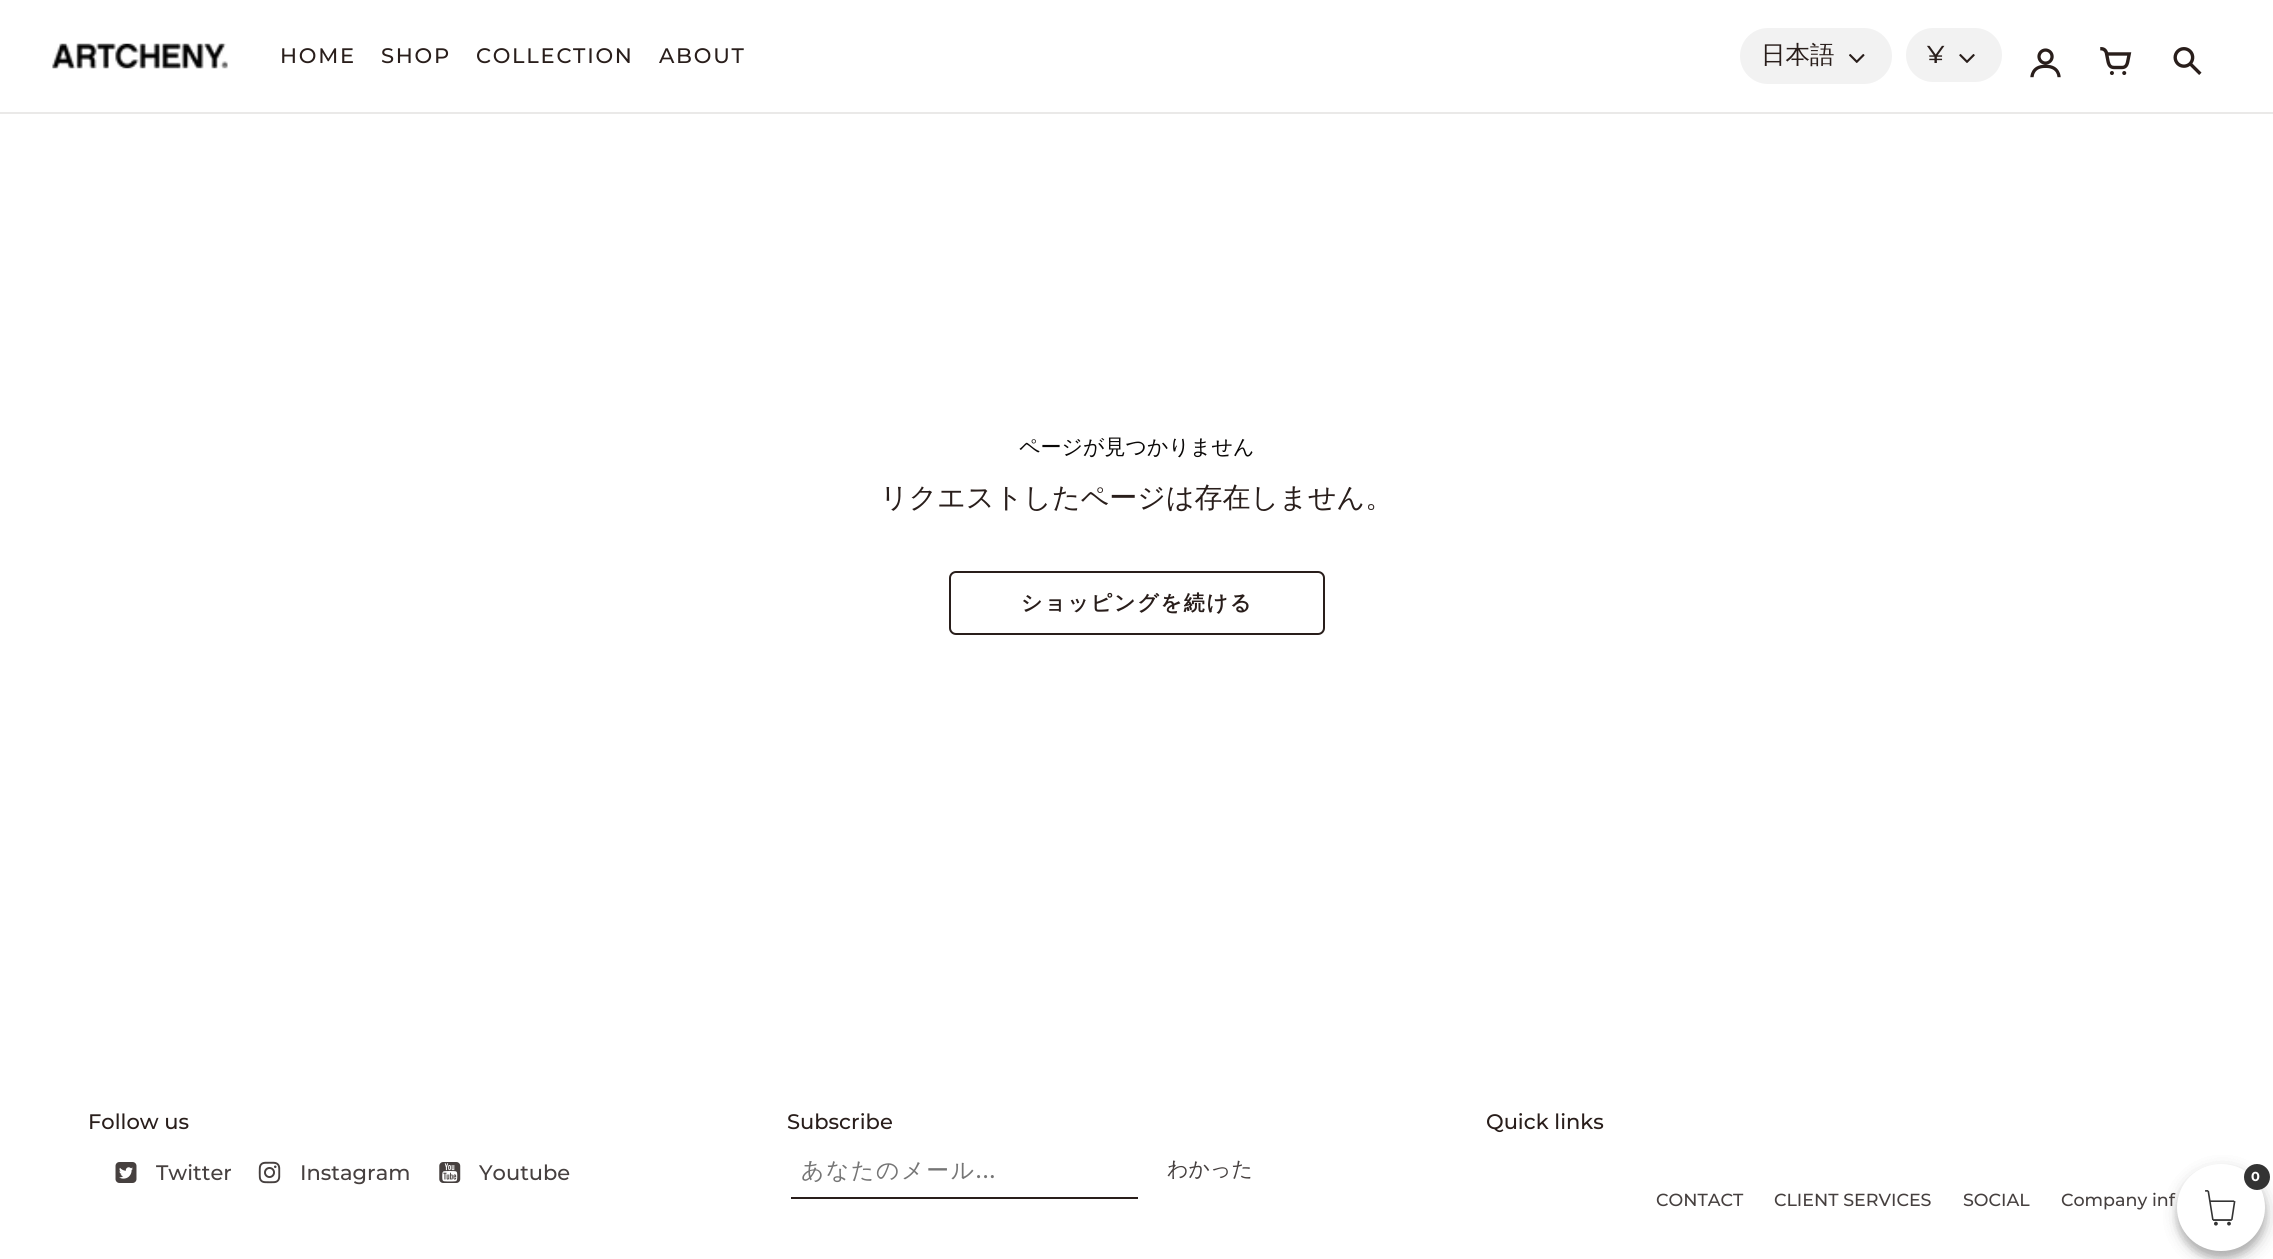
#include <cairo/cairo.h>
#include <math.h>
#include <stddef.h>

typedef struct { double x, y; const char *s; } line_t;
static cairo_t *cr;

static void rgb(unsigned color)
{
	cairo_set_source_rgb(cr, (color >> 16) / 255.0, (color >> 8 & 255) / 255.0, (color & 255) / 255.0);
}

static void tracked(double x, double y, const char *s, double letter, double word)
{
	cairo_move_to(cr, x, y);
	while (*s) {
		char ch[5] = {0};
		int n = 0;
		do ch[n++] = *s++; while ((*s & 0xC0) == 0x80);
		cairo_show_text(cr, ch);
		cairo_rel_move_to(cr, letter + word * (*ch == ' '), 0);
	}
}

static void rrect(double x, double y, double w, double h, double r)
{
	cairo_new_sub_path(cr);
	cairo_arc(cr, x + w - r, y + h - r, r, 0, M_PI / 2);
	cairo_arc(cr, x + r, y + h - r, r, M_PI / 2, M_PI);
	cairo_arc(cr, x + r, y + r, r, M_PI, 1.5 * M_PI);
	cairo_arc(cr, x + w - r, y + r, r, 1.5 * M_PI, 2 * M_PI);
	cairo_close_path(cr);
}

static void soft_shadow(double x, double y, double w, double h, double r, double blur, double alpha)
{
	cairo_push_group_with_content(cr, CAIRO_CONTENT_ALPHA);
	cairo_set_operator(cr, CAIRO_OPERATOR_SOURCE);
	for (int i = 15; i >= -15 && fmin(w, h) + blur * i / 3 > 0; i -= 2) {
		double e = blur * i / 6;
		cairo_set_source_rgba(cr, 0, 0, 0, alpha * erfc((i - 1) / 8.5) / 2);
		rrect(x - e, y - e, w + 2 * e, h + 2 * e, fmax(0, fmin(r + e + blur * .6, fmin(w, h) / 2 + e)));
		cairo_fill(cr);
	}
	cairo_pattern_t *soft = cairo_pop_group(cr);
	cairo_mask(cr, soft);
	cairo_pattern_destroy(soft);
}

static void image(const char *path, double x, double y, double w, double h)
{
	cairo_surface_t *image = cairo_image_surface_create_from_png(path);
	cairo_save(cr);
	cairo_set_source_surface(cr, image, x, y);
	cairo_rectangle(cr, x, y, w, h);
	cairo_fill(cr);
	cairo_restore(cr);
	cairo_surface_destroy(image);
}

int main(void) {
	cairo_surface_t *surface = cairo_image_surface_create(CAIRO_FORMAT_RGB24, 2273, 1259);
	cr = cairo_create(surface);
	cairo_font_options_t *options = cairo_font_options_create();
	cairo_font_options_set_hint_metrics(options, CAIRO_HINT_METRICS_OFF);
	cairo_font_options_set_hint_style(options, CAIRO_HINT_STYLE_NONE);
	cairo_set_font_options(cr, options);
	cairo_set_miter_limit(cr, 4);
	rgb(0xffffff);
	cairo_paint(cr);
	rgb(0xeae9e8);
	cairo_rectangle(cr, 0, 112, 2273, 2);
	cairo_fill(cr);
	image("img/1.png", 52, 43, 176, 26);
	rgb(0xf2f2f2);
	rrect(1740, 28, 152, 56, 28);
	cairo_fill(cr);
	image("img/2.png", 1849, 54, 16, 9);
	rrect(1906, 28, 96, 54, 27);
	cairo_fill(cr);
	image("img/3.png", 1959, 54, 16, 9);
	image("img/4.png", 2030, 48, 31, 30);
	image("img/5.png", 2100, 47, 32, 28);
	image("img/6.png", 2173, 47, 29, 28);
	rrect(950, 572, 374, 62, 6);
	rgb(0x291e1b);
	cairo_stroke(cr);
	image("img/7.png", 115, 1162, 22, 21);
	image("img/8.png", 258, 1161, 23, 23);
	image("img/9.png", 439, 1162, 22, 21);
	cairo_rectangle(cr, 791, 1197, 347, 2);
	cairo_fill(cr);
	rgb(0x000000);
	soft_shadow(2177, 1171, 88, 87, 43.5, 3.5, 0.08);
	soft_shadow(2179, 1171, 87, 87, 43.5, 9, 0.12);
	soft_shadow(2177, 1171, 88, 87, 43.5, 3.5, 0.08);
	soft_shadow(2179, 1171, 87, 87, 43.5, 9, 0.12);
	rgb(0xffffff);
	rrect(2177, 1164, 88, 87, 43.5);
	cairo_fill(cr);
	rgb(0x333333);
	cairo_arc(cr, 2257, 1177, 13, 0, 2 * M_PI);
	cairo_fill(cr);
	image("img/10.png", 2205, 1190, 31, 36);
	cairo_select_font_face(cr, "Montserrat Medium", CAIRO_FONT_SLANT_NORMAL, CAIRO_FONT_WEIGHT_NORMAL);
	cairo_set_font_size(cr, 21);
	rgb(0x291e1b);
	{
		static const line_t items[] = {
			{280, 63, "HOME"},
			{381, 63, "SHOP"},
			{476, 63, "COLLECTION"},
			{659, 63, "ABOUT"},
		};
		for (size_t i = 0; i < sizeof items / sizeof *items; i++) {
			tracked(items[i].x, items[i].y, items[i].s, 1.75, 0);
		}
	}
	cairo_select_font_face(cr, "WenQuanYi Zen Hei Medium", CAIRO_FONT_SLANT_NORMAL, CAIRO_FONT_WEIGHT_NORMAL);
	cairo_set_font_size(cr, 24.5);
	cairo_move_to(cr, 1761, 63);
	cairo_show_text(cr, "日本語");
	cairo_select_font_face(cr, "Montserrat Medium", CAIRO_FONT_SLANT_NORMAL, CAIRO_FONT_WEIGHT_NORMAL);
	cairo_move_to(cr, 1927, 63);
	cairo_show_text(cr, "¥");
	cairo_select_font_face(cr, "WenQuanYi Zen Hei Medium", CAIRO_FONT_SLANT_NORMAL, CAIRO_FONT_WEIGHT_NORMAL);
	cairo_set_font_size(cr, 21);
	rgb(0x0a0807);
	cairo_move_to(cr, 1019, 454);
	cairo_show_text(cr, "ページが見つかりません");
	cairo_set_font_size(cr, 28);
	rgb(0x291e1b);
	cairo_move_to(cr, 880, 507);
	cairo_show_text(cr, "リクエストしたページは存在しません。");
	cairo_select_font_face(cr, "WenQuanYi Zen Hei", CAIRO_FONT_SLANT_NORMAL, CAIRO_FONT_WEIGHT_BOLD);
	cairo_set_font_size(cr, 21);
	tracked(1021, 610, "ショッピングを続ける", 1.75, 0);
	cairo_select_font_face(cr, "Montserrat Medium", CAIRO_FONT_SLANT_NORMAL, CAIRO_FONT_WEIGHT_NORMAL);
	cairo_move_to(cr, 88, 1129);
	cairo_show_text(cr, "Follow us");
	rgb(0x46403f);
	{
		static const line_t items[] = {
			{156, 1180, "Twitter"},
			{300, 1180, "Instagram"},
			{479, 1180, "Youtube"},
		};
		for (size_t i = 0; i < sizeof items / sizeof *items; i++) {
			cairo_move_to(cr, items[i].x, items[i].y);
			cairo_show_text(cr, items[i].s);
		}
	}
	rgb(0x291e1b);
	cairo_move_to(cr, 787, 1129);
	cairo_show_text(cr, "Subscribe");
	cairo_select_font_face(cr, "WenQuanYi Zen Hei Medium", CAIRO_FONT_SLANT_NORMAL, CAIRO_FONT_WEIGHT_NORMAL);
	cairo_set_font_size(cr, 22.75);
	rgb(0x757575);
	tracked(801, 1178, "あなたのメール", 1.75, 0);
	cairo_select_font_face(cr, "Montserrat Medium", CAIRO_FONT_SLANT_NORMAL, CAIRO_FONT_WEIGHT_NORMAL);
	tracked(976, 1178, "...", 1.75, 0);
	cairo_select_font_face(cr, "WenQuanYi Zen Hei Medium", CAIRO_FONT_SLANT_NORMAL, CAIRO_FONT_WEIGHT_NORMAL);
	cairo_set_font_size(cr, 21);
	rgb(0x46403f);
	cairo_move_to(cr, 1167, 1176);
	cairo_show_text(cr, "わかった");
	cairo_select_font_face(cr, "Montserrat Medium", CAIRO_FONT_SLANT_NORMAL, CAIRO_FONT_WEIGHT_NORMAL);
	rgb(0x291e1b);
	cairo_move_to(cr, 1486, 1129);
	cairo_show_text(cr, "Quick links");
	cairo_set_font_size(cr, 17.5);
	rgb(0x46403f);
	{
		static const line_t items[] = {
			{1656, 1206, "CONTACT"},
			{1774, 1206, "CLIENT SERVICES"},
			{1963, 1206, "SOCIAL"},
			{2061, 1206, "Company inf"},
		};
		for (size_t i = 0; i < sizeof items / sizeof *items; i++) {
			cairo_move_to(cr, items[i].x, items[i].y);
			cairo_show_text(cr, items[i].s);
		}
	}
	cairo_select_font_face(cr, "Montserrat", CAIRO_FONT_SLANT_NORMAL, CAIRO_FONT_WEIGHT_BOLD);
	cairo_set_font_size(cr, 13);
	rgb(0xffffff);
	cairo_move_to(cr, 2251, 1181);
	cairo_show_text(cr, "0");
	cairo_surface_write_to_png(surface, "page.png");
	cairo_font_options_destroy(options);
	cairo_destroy(cr);
	cairo_surface_destroy(surface);
	return 0;
}
